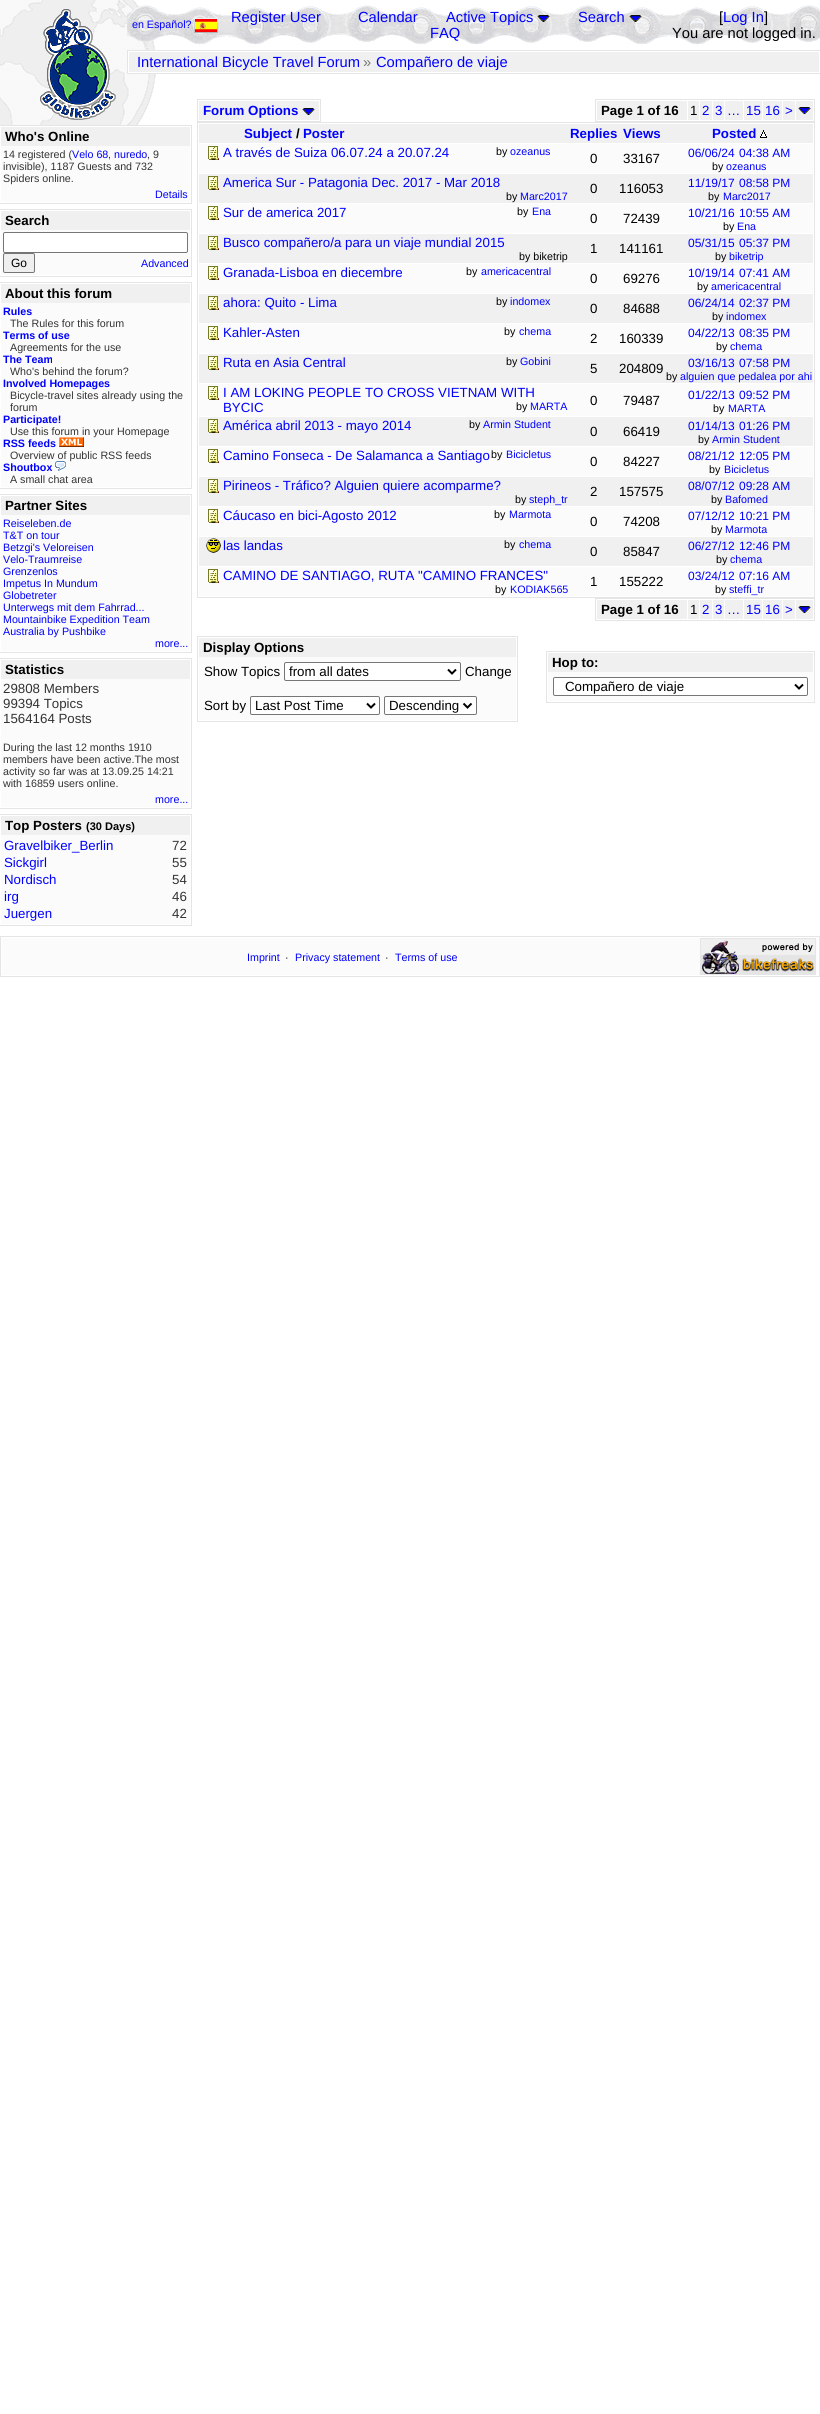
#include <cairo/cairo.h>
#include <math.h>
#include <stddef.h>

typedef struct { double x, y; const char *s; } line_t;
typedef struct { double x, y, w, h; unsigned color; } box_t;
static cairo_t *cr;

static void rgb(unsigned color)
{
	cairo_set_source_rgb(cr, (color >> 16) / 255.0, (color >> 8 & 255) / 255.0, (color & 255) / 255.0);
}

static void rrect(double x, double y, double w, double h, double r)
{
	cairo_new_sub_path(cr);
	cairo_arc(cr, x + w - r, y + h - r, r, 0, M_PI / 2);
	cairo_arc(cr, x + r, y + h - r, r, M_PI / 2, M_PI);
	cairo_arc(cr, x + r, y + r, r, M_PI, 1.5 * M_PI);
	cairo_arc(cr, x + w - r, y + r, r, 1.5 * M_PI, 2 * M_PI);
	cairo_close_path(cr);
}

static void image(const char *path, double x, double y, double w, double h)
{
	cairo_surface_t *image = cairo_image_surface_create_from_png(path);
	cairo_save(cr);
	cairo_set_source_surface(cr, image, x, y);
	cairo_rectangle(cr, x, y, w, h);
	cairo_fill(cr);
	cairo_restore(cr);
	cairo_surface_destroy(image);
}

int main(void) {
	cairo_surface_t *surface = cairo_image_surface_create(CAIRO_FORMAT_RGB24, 820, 2414);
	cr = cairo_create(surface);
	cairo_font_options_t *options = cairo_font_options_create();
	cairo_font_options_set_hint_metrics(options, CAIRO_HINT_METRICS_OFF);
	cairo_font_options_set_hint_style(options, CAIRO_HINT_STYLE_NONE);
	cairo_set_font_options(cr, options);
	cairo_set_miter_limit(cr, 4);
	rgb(0xffffff);
	cairo_paint(cr);
	image("img/1.png", 0, 0, 156, 125);
	image("img/2.png", 43, 9, 67, 70);
	image("img/3.png", 127, 5, 693, 40);
	image("img/4.png", 194, 18, 24, 15);
	image("img/5.png", 537, 15, 13, 7);
	image("img/6.png", 629, 15, 13, 7);
	{
		static const box_t items[] = {
			{128, 51, 28, 22, 0xffffff},
			{127, 50, 693, 1, 0xe5e5e5},
			{127, 73, 693, 1, 0xe5e5e5},
			{127, 50, 1, 24, 0xe5e5e5},
			{129, 52, 690, 20, 0xf0f0f0},
		};
		for (size_t i = 0; i < sizeof items / sizeof *items; i++) {
			rgb(items[i].color);
			cairo_rectangle(cr, items[i].x, items[i].y, items[i].w, items[i].h);
			cairo_fill(cr);
		}
	}
	image("img/7.png", 40, 79, 76, 41);
	{
		static const box_t items[] = {
			{0, 125, 192, 1, 0xe5e5e5},
			{191, 125, 1, 79, 0xe5e5e5},
			{0, 203, 192, 1, 0xe5e5e5},
			{1, 127, 189, 19, 0xf0f0f0},
			{1, 146, 189, 56, 0xfbfbfb},
			{0, 209, 192, 1, 0xe5e5e5},
			{191, 209, 1, 68, 0xe5e5e5},
			{0, 276, 192, 1, 0xe5e5e5},
			{1, 211, 189, 19, 0xf0f0f0},
			{1, 230, 189, 45, 0xfbfbfb},
		};
		for (size_t i = 0; i < sizeof items / sizeof *items; i++) {
			rgb(items[i].color);
			cairo_rectangle(cr, items[i].x, items[i].y, items[i].w, items[i].h);
			cairo_fill(cr);
		}
	}
	rgb(0xffffff);
	rrect(3.5, 232.5, 184, 20, 1.5);
	cairo_fill_preserve(cr);
	rgb(0x767676);
	cairo_set_line_width(cr, 1);
	cairo_stroke(cr);
	rgb(0xefefef);
	rrect(3.5, 253.5, 31, 19, 1.5);
	cairo_fill_preserve(cr);
	rgb(0x767676);
	cairo_stroke(cr);
	{
		static const box_t items[] = {
			{0, 282, 192, 1, 0xe5e5e5},
			{191, 282, 1, 207, 0xe5e5e5},
			{0, 488, 192, 1, 0xe5e5e5},
			{1, 284, 189, 19, 0xf0f0f0},
			{1, 303, 189, 184, 0xfbfbfb},
			{0, 494, 192, 1, 0xe5e5e5},
			{191, 494, 1, 159, 0xe5e5e5},
			{0, 652, 192, 1, 0xe5e5e5},
			{1, 496, 189, 19, 0xf0f0f0},
			{1, 515, 189, 136, 0xfbfbfb},
			{0, 658, 192, 1, 0xe5e5e5},
			{191, 658, 1, 151, 0xe5e5e5},
			{0, 808, 192, 1, 0xe5e5e5},
			{1, 660, 189, 19, 0xf0f0f0},
			{1, 679, 189, 128, 0xfbfbfb},
			{0, 814, 192, 1, 0xe5e5e5},
			{191, 814, 1, 112, 0xe5e5e5},
			{0, 925, 192, 1, 0xe5e5e5},
			{1, 816, 189, 19, 0xf0f0f0},
			{1, 835, 189, 89, 0xfbfbfb},
		};
		for (size_t i = 0; i < sizeof items / sizeof *items; i++) {
			rgb(items[i].color);
			cairo_rectangle(cr, items[i].x, items[i].y, items[i].w, items[i].h);
			cairo_fill(cr);
		}
	}
	cairo_rectangle(cr, 197.5, 99.5, 123, 22);
	rgb(0xe5e5e5);
	cairo_stroke(cr);
	rgb(0xf0f0f0);
	cairo_rectangle(cr, 199, 101, 120, 19);
	cairo_fill(cr);
	image("img/10.png", 302, 108, 13, 7);
	cairo_rectangle(cr, 595.5, 99.5, 219, 22);
	rgb(0xe5e5e5);
	cairo_stroke(cr);
	{
		static const box_t items[] = {
			{597, 101, 90, 19, 0xf0f0f0},
			{688, 101, 11, 19, 0xf0f0f0},
			{700, 101, 12, 19, 0xf0f0f0},
			{713, 101, 11, 19, 0xf0f0f0},
			{725, 101, 18, 19, 0xf0f0f0},
			{744, 101, 18, 19, 0xf0f0f0},
			{763, 101, 19, 19, 0xf0f0f0},
			{783, 101, 12, 19, 0xf0f0f0},
			{796, 101, 17, 19, 0xf0f0f0},
		};
		for (size_t i = 0; i < sizeof items / sizeof *items; i++) {
			rgb(items[i].color);
			cairo_rectangle(cr, items[i].x, items[i].y, items[i].w, items[i].h);
			cairo_fill(cr);
		}
	}
	image("img/10.png", 798, 107, 13, 7);
	cairo_rectangle(cr, 197.5, 122.5, 617, 475);
	rgb(0xe5e5e5);
	cairo_stroke(cr);
	rgb(0xf0f0f0);
	cairo_rectangle(cr, 199, 124, 614, 19);
	cairo_fill(cr);
	image("img/11.png", 760, 130, 7, 8);
	rgb(0xfbfbfb);
	cairo_rectangle(cr, 199, 144, 614, 29);
	cairo_fill(cr);
	image("img/12.png", 208, 146, 11, 14);
	rgb(0xf0f0f0);
	cairo_rectangle(cr, 199, 174, 614, 29);
	cairo_fill(cr);
	image("img/13.png", 208, 176, 11, 14);
	rgb(0xfbfbfb);
	cairo_rectangle(cr, 199, 204, 614, 29);
	cairo_fill(cr);
	image("img/12.png", 208, 206, 11, 14);
	rgb(0xf0f0f0);
	cairo_rectangle(cr, 199, 234, 614, 29);
	cairo_fill(cr);
	image("img/13.png", 208, 236, 11, 14);
	rgb(0xfbfbfb);
	cairo_rectangle(cr, 199, 264, 614, 29);
	cairo_fill(cr);
	image("img/12.png", 208, 266, 11, 14);
	rgb(0xf0f0f0);
	cairo_rectangle(cr, 199, 294, 614, 29);
	cairo_fill(cr);
	image("img/13.png", 208, 296, 11, 14);
	rgb(0xfbfbfb);
	cairo_rectangle(cr, 199, 324, 614, 29);
	cairo_fill(cr);
	image("img/12.png", 208, 326, 11, 14);
	rgb(0xf0f0f0);
	cairo_rectangle(cr, 199, 354, 614, 29);
	cairo_fill(cr);
	image("img/13.png", 208, 356, 11, 14);
	rgb(0xfbfbfb);
	cairo_rectangle(cr, 199, 384, 614, 32);
	cairo_fill(cr);
	image("img/12.png", 208, 386, 11, 14);
	rgb(0xf0f0f0);
	cairo_rectangle(cr, 199, 417, 614, 29);
	cairo_fill(cr);
	image("img/13.png", 208, 419, 11, 14);
	rgb(0xfbfbfb);
	cairo_rectangle(cr, 199, 447, 614, 29);
	cairo_fill(cr);
	image("img/12.png", 208, 449, 11, 14);
	rgb(0xf0f0f0);
	cairo_rectangle(cr, 199, 477, 614, 29);
	cairo_fill(cr);
	image("img/13.png", 208, 479, 11, 14);
	rgb(0xfbfbfb);
	cairo_rectangle(cr, 199, 507, 614, 29);
	cairo_fill(cr);
	image("img/12.png", 208, 509, 11, 14);
	rgb(0xf0f0f0);
	cairo_rectangle(cr, 199, 537, 614, 29);
	cairo_fill(cr);
	image("img/14.png", 206, 538, 15, 15);
	rgb(0xfbfbfb);
	cairo_rectangle(cr, 199, 567, 614, 29);
	cairo_fill(cr);
	image("img/12.png", 208, 569, 11, 14);
	cairo_rectangle(cr, 595.5, 598.5, 219, 22);
	rgb(0xe5e5e5);
	cairo_stroke(cr);
	{
		static const box_t items[] = {
			{597, 600, 90, 19, 0xf0f0f0},
			{688, 600, 11, 19, 0xf0f0f0},
			{700, 600, 12, 19, 0xf0f0f0},
			{713, 600, 11, 19, 0xf0f0f0},
			{725, 600, 18, 19, 0xf0f0f0},
			{744, 600, 18, 19, 0xf0f0f0},
			{763, 600, 19, 19, 0xf0f0f0},
			{783, 600, 12, 19, 0xf0f0f0},
			{796, 600, 17, 19, 0xf0f0f0},
		};
		for (size_t i = 0; i < sizeof items / sizeof *items; i++) {
			rgb(items[i].color);
			cairo_rectangle(cr, items[i].x, items[i].y, items[i].w, items[i].h);
			cairo_fill(cr);
		}
	}
	image("img/10.png", 798, 606, 13, 7);
	cairo_rectangle(cr, 197.5, 636.5, 320, 85);
	rgb(0xe5e5e5);
	cairo_stroke(cr);
	rgb(0xf0f0f0);
	cairo_rectangle(cr, 199, 638, 317, 19);
	cairo_fill(cr);
	rgb(0xfbfbfb);
	cairo_rectangle(cr, 199, 657, 317, 63);
	cairo_fill(cr);
	rgb(0xffffff);
	rrect(284.5, 662.5, 176, 18, 1.5);
	cairo_fill_preserve(cr);
	rgb(0x767676);
	cairo_stroke(cr);
	cairo_new_path(cr);
	cairo_move_to(cr, 448, 669.5);
	cairo_line_to(cr, 452, 673.5);
	cairo_line_to(cr, 456, 669.5);
	rgb(0x000000);
	cairo_set_line_width(cr, 2);
	cairo_stroke(cr);
	rgb(0xffffff);
	rrect(250.5, 696.5, 129, 18, 1.5);
	cairo_fill_preserve(cr);
	rgb(0x767676);
	cairo_set_line_width(cr, 1);
	cairo_stroke(cr);
	cairo_new_path(cr);
	cairo_move_to(cr, 367, 703.5);
	cairo_line_to(cr, 371, 707.5);
	cairo_line_to(cr, 375, 703.5);
	rgb(0x000000);
	cairo_set_line_width(cr, 2);
	cairo_stroke(cr);
	rgb(0xffffff);
	rrect(384.5, 696.5, 92, 18, 1.5);
	cairo_fill_preserve(cr);
	rgb(0x767676);
	cairo_set_line_width(cr, 1);
	cairo_stroke(cr);
	cairo_new_path(cr);
	cairo_move_to(cr, 463.5, 703.5);
	cairo_line_to(cr, 467.5, 707.5);
	cairo_line_to(cr, 471.5, 703.5);
	rgb(0x000000);
	cairo_set_line_width(cr, 2);
	cairo_stroke(cr);
	cairo_rectangle(cr, 546.5, 651.5, 268, 51);
	rgb(0xe5e5e5);
	cairo_set_line_width(cr, 1);
	cairo_stroke(cr);
	rgb(0xf0f0f0);
	cairo_rectangle(cr, 548, 653, 265, 19);
	cairo_fill(cr);
	rgb(0xfbfbfb);
	cairo_rectangle(cr, 548, 672, 265, 29);
	cairo_fill(cr);
	rgb(0xffffff);
	rrect(553.5, 677.5, 254, 18, 1.5);
	cairo_fill_preserve(cr);
	rgb(0x767676);
	cairo_stroke(cr);
	cairo_new_path(cr);
	cairo_move_to(cr, 795, 684.5);
	cairo_line_to(cr, 799, 688.5);
	cairo_line_to(cr, 803, 684.5);
	rgb(0x000000);
	cairo_set_line_width(cr, 2);
	cairo_stroke(cr);
	cairo_rectangle(cr, 0.5, 936.5, 819, 40);
	rgb(0xe5e5e5);
	cairo_set_line_width(cr, 1);
	cairo_stroke(cr);
	rgb(0xfbfbfb);
	cairo_rectangle(cr, 2, 938, 816, 37);
	cairo_fill(cr);
	image("img/15.png", 700, 938, 116, 37);
	cairo_select_font_face(cr, "Liberation Sans", CAIRO_FONT_SLANT_NORMAL, CAIRO_FONT_WEIGHT_NORMAL);
	cairo_set_font_size(cr, 10.7);
	rgb(0x0000ff);
	cairo_move_to(cr, 132, 28);
	cairo_show_text(cr, "en Español?");
	cairo_set_font_size(cr, 14.7);
	{
		static const line_t items[] = {
			{231, 22, "Register User"},
			{358, 22, "Calendar"},
			{446, 22, "Active Topics"},
			{578, 22, "Search"},
			{430, 38, "FAQ"},
		};
		for (size_t i = 0; i < sizeof items / sizeof *items; i++) {
			cairo_move_to(cr, items[i].x, items[i].y);
			cairo_show_text(cr, items[i].s);
		}
	}
	rgb(0x000000);
	cairo_move_to(cr, 719, 22);
	cairo_show_text(cr, "[");
	rgb(0x0000ff);
	cairo_move_to(cr, 723, 22);
	cairo_show_text(cr, "Log In");
	rgb(0x000000);
	cairo_move_to(cr, 764, 22);
	cairo_show_text(cr, "]");
	cairo_move_to(cr, 672, 38);
	cairo_show_text(cr, "You are not logged in.");
	rgb(0x0000ff);
	cairo_move_to(cr, 137, 67);
	cairo_show_text(cr, "International Bicycle Travel Forum");
	rgb(0x777777);
	cairo_move_to(cr, 363, 67);
	cairo_show_text(cr, "»");
	rgb(0x0000ff);
	cairo_move_to(cr, 376, 67);
	cairo_show_text(cr, "Compañero de viaje");
	cairo_select_font_face(cr, "Liberation Sans", CAIRO_FONT_SLANT_NORMAL, CAIRO_FONT_WEIGHT_BOLD);
	cairo_set_font_size(cr, 13.3);
	rgb(0x000000);
	cairo_move_to(cr, 5, 141);
	cairo_show_text(cr, "Who's Online");
	cairo_select_font_face(cr, "Liberation Sans", CAIRO_FONT_SLANT_NORMAL, CAIRO_FONT_WEIGHT_NORMAL);
	cairo_set_font_size(cr, 10.7);
	rgb(0x333333);
	cairo_move_to(cr, 3, 158);
	cairo_show_text(cr, "14 registered (");
	rgb(0x0000ff);
	cairo_move_to(cr, 72, 158);
	cairo_show_text(cr, "Velo 68");
	rgb(0x333333);
	cairo_move_to(cr, 108, 158);
	cairo_show_text(cr, ",");
	rgb(0x0000ff);
	cairo_move_to(cr, 114, 158);
	cairo_show_text(cr, "nuredo");
	rgb(0x333333);
	{
		static const line_t items[] = {
			{147, 158, ", 9"},
			{3, 170, "invisible), 1187 Guests and 732"},
			{3, 182, "Spiders online."},
		};
		for (size_t i = 0; i < sizeof items / sizeof *items; i++) {
			cairo_move_to(cr, items[i].x, items[i].y);
			cairo_show_text(cr, items[i].s);
		}
	}
	rgb(0x0000ff);
	cairo_move_to(cr, 155, 198);
	cairo_show_text(cr, "Details");
	cairo_select_font_face(cr, "Liberation Sans", CAIRO_FONT_SLANT_NORMAL, CAIRO_FONT_WEIGHT_BOLD);
	cairo_set_font_size(cr, 13.3);
	rgb(0x000000);
	cairo_move_to(cr, 5, 225);
	cairo_show_text(cr, "Search");
	cairo_select_font_face(cr, "Liberation Sans", CAIRO_FONT_SLANT_NORMAL, CAIRO_FONT_WEIGHT_NORMAL);
	cairo_set_font_size(cr, 12);
	cairo_move_to(cr, 11, 267);
	cairo_show_text(cr, "Go");
	cairo_set_font_size(cr, 10.7);
	rgb(0x0000ff);
	cairo_move_to(cr, 141, 267);
	cairo_show_text(cr, "Advanced");
	cairo_select_font_face(cr, "Liberation Sans", CAIRO_FONT_SLANT_NORMAL, CAIRO_FONT_WEIGHT_BOLD);
	cairo_set_font_size(cr, 13.3);
	rgb(0x000000);
	cairo_move_to(cr, 5, 298);
	cairo_show_text(cr, "About this forum");
	cairo_set_font_size(cr, 10.7);
	rgb(0x0000ff);
	cairo_move_to(cr, 3, 315);
	cairo_show_text(cr, "Rules");
	cairo_select_font_face(cr, "Liberation Sans", CAIRO_FONT_SLANT_NORMAL, CAIRO_FONT_WEIGHT_NORMAL);
	rgb(0x333333);
	cairo_move_to(cr, 10, 327);
	cairo_show_text(cr, "The Rules for this forum");
	cairo_select_font_face(cr, "Liberation Sans", CAIRO_FONT_SLANT_NORMAL, CAIRO_FONT_WEIGHT_BOLD);
	rgb(0x0000ff);
	cairo_move_to(cr, 3, 339);
	cairo_show_text(cr, "Terms of use");
	cairo_select_font_face(cr, "Liberation Sans", CAIRO_FONT_SLANT_NORMAL, CAIRO_FONT_WEIGHT_NORMAL);
	rgb(0x333333);
	cairo_move_to(cr, 10, 351);
	cairo_show_text(cr, "Agreements for the use");
	cairo_select_font_face(cr, "Liberation Sans", CAIRO_FONT_SLANT_NORMAL, CAIRO_FONT_WEIGHT_BOLD);
	rgb(0x0000ff);
	cairo_move_to(cr, 3, 363);
	cairo_show_text(cr, "The Team");
	cairo_select_font_face(cr, "Liberation Sans", CAIRO_FONT_SLANT_NORMAL, CAIRO_FONT_WEIGHT_NORMAL);
	rgb(0x333333);
	cairo_move_to(cr, 10, 375);
	cairo_show_text(cr, "Who's behind the forum?");
	cairo_select_font_face(cr, "Liberation Sans", CAIRO_FONT_SLANT_NORMAL, CAIRO_FONT_WEIGHT_BOLD);
	rgb(0x0000ff);
	cairo_move_to(cr, 3, 387);
	cairo_show_text(cr, "Involved Homepages");
	cairo_select_font_face(cr, "Liberation Sans", CAIRO_FONT_SLANT_NORMAL, CAIRO_FONT_WEIGHT_NORMAL);
	rgb(0x333333);
	cairo_move_to(cr, 10, 399);
	cairo_show_text(cr, "Bicycle-travel sites already using the");
	cairo_move_to(cr, 10, 411);
	cairo_show_text(cr, "forum");
	cairo_select_font_face(cr, "Liberation Sans", CAIRO_FONT_SLANT_NORMAL, CAIRO_FONT_WEIGHT_BOLD);
	rgb(0x0000ff);
	cairo_move_to(cr, 3, 423);
	cairo_show_text(cr, "Participate!");
	cairo_select_font_face(cr, "Liberation Sans", CAIRO_FONT_SLANT_NORMAL, CAIRO_FONT_WEIGHT_NORMAL);
	rgb(0x333333);
	cairo_move_to(cr, 10, 435);
	cairo_show_text(cr, "Use this forum in your Homepage");
	cairo_select_font_face(cr, "Liberation Sans", CAIRO_FONT_SLANT_NORMAL, CAIRO_FONT_WEIGHT_BOLD);
	rgb(0x0000ff);
	cairo_move_to(cr, 3, 447);
	cairo_show_text(cr, "RSS feeds");
	image("img/8.png", 59, 437, 25, 10);
	cairo_select_font_face(cr, "Liberation Sans", CAIRO_FONT_SLANT_NORMAL, CAIRO_FONT_WEIGHT_NORMAL);
	rgb(0x333333);
	cairo_move_to(cr, 10, 459);
	cairo_show_text(cr, "Overview of public RSS feeds");
	cairo_select_font_face(cr, "Liberation Sans", CAIRO_FONT_SLANT_NORMAL, CAIRO_FONT_WEIGHT_BOLD);
	rgb(0x0000ff);
	cairo_move_to(cr, 3, 471);
	cairo_show_text(cr, "Shoutbox");
	image("img/9.png", 55, 461, 11, 10);
	cairo_select_font_face(cr, "Liberation Sans", CAIRO_FONT_SLANT_NORMAL, CAIRO_FONT_WEIGHT_NORMAL);
	rgb(0x333333);
	cairo_move_to(cr, 10, 483);
	cairo_show_text(cr, "A small chat area");
	cairo_select_font_face(cr, "Liberation Sans", CAIRO_FONT_SLANT_NORMAL, CAIRO_FONT_WEIGHT_BOLD);
	cairo_set_font_size(cr, 13.3);
	rgb(0x000000);
	cairo_move_to(cr, 5, 510);
	cairo_show_text(cr, "Partner Sites");
	cairo_select_font_face(cr, "Liberation Sans", CAIRO_FONT_SLANT_NORMAL, CAIRO_FONT_WEIGHT_NORMAL);
	cairo_set_font_size(cr, 10.7);
	rgb(0x0000ff);
	{
		static const line_t items[] = {
			{3, 527, "Reiseleben.de"},
			{3, 539, "T&T on tour"},
			{3, 551, "Betzgi's Veloreisen"},
			{3, 563, "Velo-Traumreise"},
			{3, 575, "Grenzenlos"},
			{3, 587, "Impetus In Mundum"},
			{3, 599, "Globetreter"},
			{3, 611, "Unterwegs mit dem Fahrrad..."},
			{3, 623, "Mountainbike Expedition Team"},
			{3, 635, "Australia by Pushbike"},
			{155, 647, "more..."},
		};
		for (size_t i = 0; i < sizeof items / sizeof *items; i++) {
			cairo_move_to(cr, items[i].x, items[i].y);
			cairo_show_text(cr, items[i].s);
		}
	}
	cairo_select_font_face(cr, "Liberation Sans", CAIRO_FONT_SLANT_NORMAL, CAIRO_FONT_WEIGHT_BOLD);
	cairo_set_font_size(cr, 13.3);
	rgb(0x000000);
	cairo_move_to(cr, 5, 674);
	cairo_show_text(cr, "Statistics");
	cairo_select_font_face(cr, "Liberation Sans", CAIRO_FONT_SLANT_NORMAL, CAIRO_FONT_WEIGHT_NORMAL);
	rgb(0x333333);
	{
		static const line_t items[] = {
			{3, 693, "29808 Members"},
			{3, 708, "99394 Topics"},
			{3, 723, "1564164 Posts"},
		};
		for (size_t i = 0; i < sizeof items / sizeof *items; i++) {
			cairo_move_to(cr, items[i].x, items[i].y);
			cairo_show_text(cr, items[i].s);
		}
	}
	cairo_set_font_size(cr, 10.7);
	{
		static const line_t items[] = {
			{3, 751, "During the last 12 months 1910"},
			{3, 763, "members have been active.The most"},
			{3, 775, "activity so far was at 13.09.25 14:21"},
			{3, 787, "with 16859 users online."},
		};
		for (size_t i = 0; i < sizeof items / sizeof *items; i++) {
			cairo_move_to(cr, items[i].x, items[i].y);
			cairo_show_text(cr, items[i].s);
		}
	}
	rgb(0x0000ff);
	cairo_move_to(cr, 155, 803);
	cairo_show_text(cr, "more...");
	cairo_select_font_face(cr, "Liberation Sans", CAIRO_FONT_SLANT_NORMAL, CAIRO_FONT_WEIGHT_BOLD);
	cairo_set_font_size(cr, 13.3);
	rgb(0x000000);
	cairo_move_to(cr, 5, 830);
	cairo_show_text(cr, "Top Posters");
	cairo_set_font_size(cr, 11);
	cairo_move_to(cr, 86, 830);
	cairo_show_text(cr, "(30 Days)");
	cairo_select_font_face(cr, "Liberation Sans", CAIRO_FONT_SLANT_NORMAL, CAIRO_FONT_WEIGHT_NORMAL);
	cairo_set_font_size(cr, 13.3);
	rgb(0x0000ff);
	cairo_move_to(cr, 4, 850);
	cairo_show_text(cr, "Gravelbiker_Berlin");
	rgb(0x333333);
	cairo_move_to(cr, 172, 850);
	cairo_show_text(cr, "72");
	rgb(0x0000ff);
	cairo_move_to(cr, 4, 867);
	cairo_show_text(cr, "Sickgirl");
	rgb(0x333333);
	cairo_move_to(cr, 172, 867);
	cairo_show_text(cr, "55");
	rgb(0x0000ff);
	cairo_move_to(cr, 4, 884);
	cairo_show_text(cr, "Nordisch");
	rgb(0x333333);
	cairo_move_to(cr, 172, 884);
	cairo_show_text(cr, "54");
	rgb(0x0000ff);
	cairo_move_to(cr, 4, 901);
	cairo_show_text(cr, "irg");
	rgb(0x333333);
	cairo_move_to(cr, 172, 901);
	cairo_show_text(cr, "46");
	rgb(0x0000ff);
	cairo_move_to(cr, 4, 918);
	cairo_show_text(cr, "Juergen");
	rgb(0x333333);
	cairo_move_to(cr, 172, 918);
	cairo_show_text(cr, "42");
	cairo_select_font_face(cr, "Liberation Sans", CAIRO_FONT_SLANT_NORMAL, CAIRO_FONT_WEIGHT_BOLD);
	rgb(0x0000ff);
	cairo_move_to(cr, 203, 115);
	cairo_show_text(cr, "Forum Options");
	rgb(0x000000);
	cairo_move_to(cr, 601, 115);
	cairo_show_text(cr, "Page 1 of 16");
	cairo_select_font_face(cr, "Liberation Sans", CAIRO_FONT_SLANT_NORMAL, CAIRO_FONT_WEIGHT_NORMAL);
	cairo_move_to(cr, 690, 115);
	cairo_show_text(cr, "1");
	rgb(0x0000ff);
	{
		static const line_t items[] = {
			{702, 115, "2"},
			{715, 115, "3"},
			{727, 115, "…"},
			{746, 115, "15"},
			{765, 115, "16"},
			{785, 115, ">"},
		};
		for (size_t i = 0; i < sizeof items / sizeof *items; i++) {
			cairo_move_to(cr, items[i].x, items[i].y);
			cairo_show_text(cr, items[i].s);
		}
	}
	cairo_select_font_face(cr, "Liberation Sans", CAIRO_FONT_SLANT_NORMAL, CAIRO_FONT_WEIGHT_BOLD);
	cairo_move_to(cr, 244, 138);
	cairo_show_text(cr, "Subject");
	rgb(0x000000);
	cairo_move_to(cr, 296, 138);
	cairo_show_text(cr, "/");
	rgb(0x0000ff);
	{
		static const line_t items[] = {
			{303, 138, "Poster"},
			{570, 138, "Replies"},
			{623, 138, "Views"},
			{712, 138, "Posted"},
		};
		for (size_t i = 0; i < sizeof items / sizeof *items; i++) {
			cairo_move_to(cr, items[i].x, items[i].y);
			cairo_show_text(cr, items[i].s);
		}
	}
	cairo_select_font_face(cr, "Liberation Sans", CAIRO_FONT_SLANT_NORMAL, CAIRO_FONT_WEIGHT_NORMAL);
	cairo_move_to(cr, 223, 157);
	cairo_show_text(cr, "A través de Suiza 06.07.24 a 20.07.24");
	cairo_set_font_size(cr, 10.7);
	rgb(0x000000);
	cairo_move_to(cr, 496, 155);
	cairo_show_text(cr, "by");
	rgb(0x0000ff);
	cairo_move_to(cr, 510, 155);
	cairo_show_text(cr, "ozeanus");
	cairo_set_font_size(cr, 13.3);
	rgb(0x000000);
	cairo_move_to(cr, 590, 163);
	cairo_show_text(cr, "0");
	cairo_move_to(cr, 623, 163);
	cairo_show_text(cr, "33167");
	cairo_set_font_size(cr, 12);
	rgb(0x0000ff);
	cairo_move_to(cr, 688, 157);
	cairo_show_text(cr, "06/06/24");
	cairo_move_to(cr, 739, 157);
	cairo_show_text(cr, "04:38 AM");
	cairo_set_font_size(cr, 10.7);
	rgb(0x000000);
	cairo_move_to(cr, 712, 170);
	cairo_show_text(cr, "by");
	rgb(0x0000ff);
	cairo_move_to(cr, 726, 170);
	cairo_show_text(cr, "ozeanus");
	cairo_set_font_size(cr, 13.3);
	cairo_move_to(cr, 223, 187);
	cairo_show_text(cr, "America Sur - Patagonia Dec. 2017 - Mar 2018");
	cairo_set_font_size(cr, 10.7);
	rgb(0x000000);
	cairo_move_to(cr, 506, 200);
	cairo_show_text(cr, "by");
	rgb(0x0000ff);
	cairo_move_to(cr, 520, 200);
	cairo_show_text(cr, "Marc2017");
	cairo_set_font_size(cr, 13.3);
	rgb(0x000000);
	cairo_move_to(cr, 590, 193);
	cairo_show_text(cr, "0");
	cairo_move_to(cr, 619, 193);
	cairo_show_text(cr, "116053");
	cairo_set_font_size(cr, 12);
	rgb(0x0000ff);
	cairo_move_to(cr, 688, 187);
	cairo_show_text(cr, "11/19/17");
	cairo_move_to(cr, 739, 187);
	cairo_show_text(cr, "08:58 PM");
	cairo_set_font_size(cr, 10.7);
	rgb(0x000000);
	cairo_move_to(cr, 708, 200);
	cairo_show_text(cr, "by");
	rgb(0x0000ff);
	cairo_move_to(cr, 723, 200);
	cairo_show_text(cr, "Marc2017");
	cairo_set_font_size(cr, 13.3);
	cairo_move_to(cr, 223, 217);
	cairo_show_text(cr, "Sur de america 2017");
	cairo_set_font_size(cr, 10.7);
	rgb(0x000000);
	cairo_move_to(cr, 517, 215);
	cairo_show_text(cr, "by");
	rgb(0x0000ff);
	cairo_move_to(cr, 532, 215);
	cairo_show_text(cr, "Ena");
	cairo_set_font_size(cr, 13.3);
	rgb(0x000000);
	cairo_move_to(cr, 590, 223);
	cairo_show_text(cr, "0");
	cairo_move_to(cr, 623, 223);
	cairo_show_text(cr, "72439");
	cairo_set_font_size(cr, 12);
	rgb(0x0000ff);
	cairo_move_to(cr, 688, 217);
	cairo_show_text(cr, "10/21/16");
	cairo_move_to(cr, 739, 217);
	cairo_show_text(cr, "10:55 AM");
	cairo_set_font_size(cr, 10.7);
	rgb(0x000000);
	cairo_move_to(cr, 723, 230);
	cairo_show_text(cr, "by");
	rgb(0x0000ff);
	cairo_move_to(cr, 737, 230);
	cairo_show_text(cr, "Ena");
	cairo_set_font_size(cr, 13.3);
	cairo_move_to(cr, 223, 247);
	cairo_show_text(cr, "Busco compañero/a para un viaje mundial 2015");
	cairo_set_font_size(cr, 10.7);
	rgb(0x000000);
	cairo_move_to(cr, 519, 260);
	cairo_show_text(cr, "by biketrip");
	cairo_set_font_size(cr, 13.3);
	cairo_move_to(cr, 590, 253);
	cairo_show_text(cr, "1");
	cairo_move_to(cr, 619, 253);
	cairo_show_text(cr, "141161");
	cairo_set_font_size(cr, 12);
	rgb(0x0000ff);
	cairo_move_to(cr, 688, 247);
	cairo_show_text(cr, "05/31/15");
	cairo_move_to(cr, 739, 247);
	cairo_show_text(cr, "05:37 PM");
	cairo_set_font_size(cr, 10.7);
	rgb(0x000000);
	cairo_move_to(cr, 715, 260);
	cairo_show_text(cr, "by");
	rgb(0x0000ff);
	cairo_move_to(cr, 729, 260);
	cairo_show_text(cr, "biketrip");
	cairo_set_font_size(cr, 13.3);
	cairo_move_to(cr, 223, 277);
	cairo_show_text(cr, "Granada-Lisboa en diecembre");
	cairo_set_font_size(cr, 10.7);
	rgb(0x000000);
	cairo_move_to(cr, 466, 275);
	cairo_show_text(cr, "by");
	rgb(0x0000ff);
	cairo_move_to(cr, 481, 275);
	cairo_show_text(cr, "americacentral");
	cairo_set_font_size(cr, 13.3);
	rgb(0x000000);
	cairo_move_to(cr, 590, 283);
	cairo_show_text(cr, "0");
	cairo_move_to(cr, 623, 283);
	cairo_show_text(cr, "69276");
	cairo_set_font_size(cr, 12);
	rgb(0x0000ff);
	cairo_move_to(cr, 688, 277);
	cairo_show_text(cr, "10/19/14");
	cairo_move_to(cr, 739, 277);
	cairo_show_text(cr, "07:41 AM");
	cairo_set_font_size(cr, 10.7);
	rgb(0x000000);
	cairo_move_to(cr, 697, 290);
	cairo_show_text(cr, "by");
	rgb(0x0000ff);
	cairo_move_to(cr, 711, 290);
	cairo_show_text(cr, "americacentral");
	cairo_set_font_size(cr, 13.3);
	cairo_move_to(cr, 223, 307);
	cairo_show_text(cr, "ahora: Quito - Lima");
	cairo_set_font_size(cr, 10.7);
	rgb(0x000000);
	cairo_move_to(cr, 496, 305);
	cairo_show_text(cr, "by");
	rgb(0x0000ff);
	cairo_move_to(cr, 510, 305);
	cairo_show_text(cr, "indomex");
	cairo_set_font_size(cr, 13.3);
	rgb(0x000000);
	cairo_move_to(cr, 590, 313);
	cairo_show_text(cr, "0");
	cairo_move_to(cr, 623, 313);
	cairo_show_text(cr, "84688");
	cairo_set_font_size(cr, 12);
	rgb(0x0000ff);
	cairo_move_to(cr, 688, 307);
	cairo_show_text(cr, "06/24/14");
	cairo_move_to(cr, 739, 307);
	cairo_show_text(cr, "02:37 PM");
	cairo_set_font_size(cr, 10.7);
	rgb(0x000000);
	cairo_move_to(cr, 712, 320);
	cairo_show_text(cr, "by");
	rgb(0x0000ff);
	cairo_move_to(cr, 726, 320);
	cairo_show_text(cr, "indomex");
	cairo_set_font_size(cr, 13.3);
	cairo_move_to(cr, 223, 337);
	cairo_show_text(cr, "Kahler-Asten");
	cairo_set_font_size(cr, 10.7);
	rgb(0x000000);
	cairo_move_to(cr, 504, 335);
	cairo_show_text(cr, "by");
	rgb(0x0000ff);
	cairo_move_to(cr, 519, 335);
	cairo_show_text(cr, "chema");
	cairo_set_font_size(cr, 13.3);
	rgb(0x000000);
	cairo_move_to(cr, 590, 343);
	cairo_show_text(cr, "2");
	cairo_move_to(cr, 619, 343);
	cairo_show_text(cr, "160339");
	cairo_set_font_size(cr, 12);
	rgb(0x0000ff);
	cairo_move_to(cr, 688, 337);
	cairo_show_text(cr, "04/22/13");
	cairo_move_to(cr, 739, 337);
	cairo_show_text(cr, "08:35 PM");
	cairo_set_font_size(cr, 10.7);
	rgb(0x000000);
	cairo_move_to(cr, 716, 350);
	cairo_show_text(cr, "by");
	rgb(0x0000ff);
	cairo_move_to(cr, 730, 350);
	cairo_show_text(cr, "chema");
	cairo_set_font_size(cr, 13.3);
	cairo_move_to(cr, 223, 367);
	cairo_show_text(cr, "Ruta en Asia Central");
	cairo_set_font_size(cr, 10.7);
	rgb(0x000000);
	cairo_move_to(cr, 506, 365);
	cairo_show_text(cr, "by");
	rgb(0x0000ff);
	cairo_move_to(cr, 520, 365);
	cairo_show_text(cr, "Gobini");
	cairo_set_font_size(cr, 13.3);
	rgb(0x000000);
	cairo_move_to(cr, 590, 373);
	cairo_show_text(cr, "5");
	cairo_move_to(cr, 619, 373);
	cairo_show_text(cr, "204809");
	cairo_set_font_size(cr, 12);
	rgb(0x0000ff);
	cairo_move_to(cr, 688, 367);
	cairo_show_text(cr, "03/16/13");
	cairo_move_to(cr, 739, 367);
	cairo_show_text(cr, "07:58 PM");
	cairo_set_font_size(cr, 10.7);
	rgb(0x000000);
	cairo_move_to(cr, 666, 380);
	cairo_show_text(cr, "by");
	rgb(0x0000ff);
	cairo_move_to(cr, 680, 380);
	cairo_show_text(cr, "alguien que pedalea por ahi");
	cairo_set_font_size(cr, 13.3);
	cairo_move_to(cr, 223, 397);
	cairo_show_text(cr, "I AM LOKING PEOPLE TO CROSS VIETNAM WITH");
	cairo_move_to(cr, 223, 412);
	cairo_show_text(cr, "BYCIC");
	cairo_set_font_size(cr, 10.7);
	rgb(0x000000);
	cairo_move_to(cr, 516, 410);
	cairo_show_text(cr, "by");
	rgb(0x0000ff);
	cairo_move_to(cr, 530, 410);
	cairo_show_text(cr, "MARTA");
	cairo_set_font_size(cr, 13.3);
	rgb(0x000000);
	cairo_move_to(cr, 590, 405);
	cairo_show_text(cr, "0");
	cairo_move_to(cr, 623, 405);
	cairo_show_text(cr, "79487");
	cairo_set_font_size(cr, 12);
	rgb(0x0000ff);
	cairo_move_to(cr, 688, 399);
	cairo_show_text(cr, "01/22/13");
	cairo_move_to(cr, 739, 399);
	cairo_show_text(cr, "09:52 PM");
	cairo_set_font_size(cr, 10.7);
	rgb(0x000000);
	cairo_move_to(cr, 713, 412);
	cairo_show_text(cr, "by");
	rgb(0x0000ff);
	cairo_move_to(cr, 728, 412);
	cairo_show_text(cr, "MARTA");
	cairo_set_font_size(cr, 13.3);
	cairo_move_to(cr, 223, 430);
	cairo_show_text(cr, "América abril 2013 - mayo 2014");
	cairo_set_font_size(cr, 10.7);
	rgb(0x000000);
	cairo_move_to(cr, 469, 428);
	cairo_show_text(cr, "by");
	rgb(0x0000ff);
	cairo_move_to(cr, 483, 428);
	cairo_show_text(cr, "Armin Student");
	cairo_set_font_size(cr, 13.3);
	rgb(0x000000);
	cairo_move_to(cr, 590, 436);
	cairo_show_text(cr, "0");
	cairo_move_to(cr, 623, 436);
	cairo_show_text(cr, "66419");
	cairo_set_font_size(cr, 12);
	rgb(0x0000ff);
	cairo_move_to(cr, 688, 430);
	cairo_show_text(cr, "01/14/13");
	cairo_move_to(cr, 739, 430);
	cairo_show_text(cr, "01:26 PM");
	cairo_set_font_size(cr, 10.7);
	rgb(0x000000);
	cairo_move_to(cr, 698, 443);
	cairo_show_text(cr, "by");
	rgb(0x0000ff);
	cairo_move_to(cr, 712, 443);
	cairo_show_text(cr, "Armin Student");
	cairo_set_font_size(cr, 13.3);
	cairo_move_to(cr, 223, 460);
	cairo_show_text(cr, "Camino Fonseca - De Salamanca a Santiago");
	cairo_set_font_size(cr, 10.7);
	rgb(0x000000);
	cairo_move_to(cr, 491, 458);
	cairo_show_text(cr, "by");
	rgb(0x0000ff);
	cairo_move_to(cr, 506, 458);
	cairo_show_text(cr, "Bicicletus");
	cairo_set_font_size(cr, 13.3);
	rgb(0x000000);
	cairo_move_to(cr, 590, 466);
	cairo_show_text(cr, "0");
	cairo_move_to(cr, 623, 466);
	cairo_show_text(cr, "84227");
	cairo_set_font_size(cr, 12);
	rgb(0x0000ff);
	cairo_move_to(cr, 688, 460);
	cairo_show_text(cr, "08/21/12");
	cairo_move_to(cr, 739, 460);
	cairo_show_text(cr, "12:05 PM");
	cairo_set_font_size(cr, 10.7);
	rgb(0x000000);
	cairo_move_to(cr, 709, 473);
	cairo_show_text(cr, "by");
	rgb(0x0000ff);
	cairo_move_to(cr, 724, 473);
	cairo_show_text(cr, "Bicicletus");
	cairo_set_font_size(cr, 13.3);
	cairo_move_to(cr, 223, 490);
	cairo_show_text(cr, "Pirineos - Tráfico? Alguien quiere acomparme?");
	cairo_set_font_size(cr, 10.7);
	rgb(0x000000);
	cairo_move_to(cr, 515, 503);
	cairo_show_text(cr, "by");
	rgb(0x0000ff);
	cairo_move_to(cr, 529, 503);
	cairo_show_text(cr, "steph_tr");
	cairo_set_font_size(cr, 13.3);
	rgb(0x000000);
	cairo_move_to(cr, 590, 496);
	cairo_show_text(cr, "2");
	cairo_move_to(cr, 619, 496);
	cairo_show_text(cr, "157575");
	cairo_set_font_size(cr, 12);
	rgb(0x0000ff);
	cairo_move_to(cr, 688, 490);
	cairo_show_text(cr, "08/07/12");
	cairo_move_to(cr, 739, 490);
	cairo_show_text(cr, "09:28 AM");
	cairo_set_font_size(cr, 10.7);
	rgb(0x000000);
	cairo_move_to(cr, 711, 503);
	cairo_show_text(cr, "by");
	rgb(0x0000ff);
	cairo_move_to(cr, 725, 503);
	cairo_show_text(cr, "Bafomed");
	cairo_set_font_size(cr, 13.3);
	cairo_move_to(cr, 223, 520);
	cairo_show_text(cr, "Cáucaso en bici-Agosto 2012");
	cairo_set_font_size(cr, 10.7);
	rgb(0x000000);
	cairo_move_to(cr, 494, 518);
	cairo_show_text(cr, "by");
	rgb(0x0000ff);
	cairo_move_to(cr, 509, 518);
	cairo_show_text(cr, "Marmota");
	cairo_set_font_size(cr, 13.3);
	rgb(0x000000);
	cairo_move_to(cr, 590, 526);
	cairo_show_text(cr, "0");
	cairo_move_to(cr, 623, 526);
	cairo_show_text(cr, "74208");
	cairo_set_font_size(cr, 12);
	rgb(0x0000ff);
	cairo_move_to(cr, 688, 520);
	cairo_show_text(cr, "07/12/12");
	cairo_move_to(cr, 739, 520);
	cairo_show_text(cr, "10:21 PM");
	cairo_set_font_size(cr, 10.7);
	rgb(0x000000);
	cairo_move_to(cr, 711, 533);
	cairo_show_text(cr, "by");
	rgb(0x0000ff);
	cairo_move_to(cr, 725, 533);
	cairo_show_text(cr, "Marmota");
	cairo_set_font_size(cr, 13.3);
	cairo_move_to(cr, 223, 550);
	cairo_show_text(cr, "las landas");
	cairo_set_font_size(cr, 10.7);
	rgb(0x000000);
	cairo_move_to(cr, 504, 548);
	cairo_show_text(cr, "by");
	rgb(0x0000ff);
	cairo_move_to(cr, 519, 548);
	cairo_show_text(cr, "chema");
	cairo_set_font_size(cr, 13.3);
	rgb(0x000000);
	cairo_move_to(cr, 590, 556);
	cairo_show_text(cr, "0");
	cairo_move_to(cr, 623, 556);
	cairo_show_text(cr, "85847");
	cairo_set_font_size(cr, 12);
	rgb(0x0000ff);
	cairo_move_to(cr, 688, 550);
	cairo_show_text(cr, "06/27/12");
	cairo_move_to(cr, 739, 550);
	cairo_show_text(cr, "12:46 PM");
	cairo_set_font_size(cr, 10.7);
	rgb(0x000000);
	cairo_move_to(cr, 716, 563);
	cairo_show_text(cr, "by");
	rgb(0x0000ff);
	cairo_move_to(cr, 730, 563);
	cairo_show_text(cr, "chema");
	cairo_set_font_size(cr, 13.3);
	cairo_move_to(cr, 223, 580);
	cairo_show_text(cr, "CAMINO DE SANTIAGO, RUTA \"CAMINO FRANCES\"");
	cairo_set_font_size(cr, 10.7);
	rgb(0x000000);
	cairo_move_to(cr, 495, 593);
	cairo_show_text(cr, "by");
	rgb(0x0000ff);
	cairo_move_to(cr, 510, 593);
	cairo_show_text(cr, "KODIAK565");
	cairo_set_font_size(cr, 13.3);
	rgb(0x000000);
	cairo_move_to(cr, 590, 586);
	cairo_show_text(cr, "1");
	cairo_move_to(cr, 619, 586);
	cairo_show_text(cr, "155222");
	cairo_set_font_size(cr, 12);
	rgb(0x0000ff);
	cairo_move_to(cr, 688, 580);
	cairo_show_text(cr, "03/24/12");
	cairo_move_to(cr, 739, 580);
	cairo_show_text(cr, "07:16 AM");
	cairo_set_font_size(cr, 10.7);
	rgb(0x000000);
	cairo_move_to(cr, 715, 593);
	cairo_show_text(cr, "by");
	rgb(0x0000ff);
	cairo_move_to(cr, 729, 593);
	cairo_show_text(cr, "steffi_tr");
	cairo_select_font_face(cr, "Liberation Sans", CAIRO_FONT_SLANT_NORMAL, CAIRO_FONT_WEIGHT_BOLD);
	cairo_set_font_size(cr, 13.3);
	rgb(0x000000);
	cairo_move_to(cr, 601, 614);
	cairo_show_text(cr, "Page 1 of 16");
	cairo_select_font_face(cr, "Liberation Sans", CAIRO_FONT_SLANT_NORMAL, CAIRO_FONT_WEIGHT_NORMAL);
	cairo_move_to(cr, 690, 614);
	cairo_show_text(cr, "1");
	rgb(0x0000ff);
	{
		static const line_t items[] = {
			{702, 614, "2"},
			{715, 614, "3"},
			{727, 614, "…"},
			{746, 614, "15"},
			{765, 614, "16"},
			{785, 614, ">"},
		};
		for (size_t i = 0; i < sizeof items / sizeof *items; i++) {
			cairo_move_to(cr, items[i].x, items[i].y);
			cairo_show_text(cr, items[i].s);
		}
	}
	cairo_select_font_face(cr, "Liberation Sans", CAIRO_FONT_SLANT_NORMAL, CAIRO_FONT_WEIGHT_BOLD);
	rgb(0x000000);
	cairo_move_to(cr, 203, 652);
	cairo_show_text(cr, "Display Options");
	cairo_select_font_face(cr, "Liberation Sans", CAIRO_FONT_SLANT_NORMAL, CAIRO_FONT_WEIGHT_NORMAL);
	{
		static const line_t items[] = {
			{204, 676, "Show Topics"},
			{289, 676, "from all dates"},
			{465, 676, "Change"},
			{204, 710, "Sort by"},
			{255, 710, "Last Post Time"},
			{389, 710, "Descending"},
		};
		for (size_t i = 0; i < sizeof items / sizeof *items; i++) {
			cairo_move_to(cr, items[i].x, items[i].y);
			cairo_show_text(cr, items[i].s);
		}
	}
	cairo_select_font_face(cr, "Liberation Sans", CAIRO_FONT_SLANT_NORMAL, CAIRO_FONT_WEIGHT_BOLD);
	cairo_move_to(cr, 552, 667);
	cairo_show_text(cr, "Hop to:");
	cairo_select_font_face(cr, "Liberation Sans", CAIRO_FONT_SLANT_NORMAL, CAIRO_FONT_WEIGHT_NORMAL);
	cairo_move_to(cr, 565, 691);
	cairo_show_text(cr, "Compañero de viaje");
	cairo_set_font_size(cr, 10.7);
	rgb(0x0000ff);
	cairo_move_to(cr, 247, 961);
	cairo_show_text(cr, "Imprint");
	rgb(0x000000);
	cairo_move_to(cr, 285, 961);
	cairo_show_text(cr, "·");
	rgb(0x0000ff);
	cairo_move_to(cr, 295, 961);
	cairo_show_text(cr, "Privacy statement");
	rgb(0x000000);
	cairo_move_to(cr, 385, 961);
	cairo_show_text(cr, "·");
	rgb(0x0000ff);
	cairo_move_to(cr, 395, 961);
	cairo_show_text(cr, "Terms of use");
	cairo_surface_write_to_png(surface, "page.png");
	cairo_font_options_destroy(options);
	cairo_destroy(cr);
	cairo_surface_destroy(surface);
	return 0;
}
